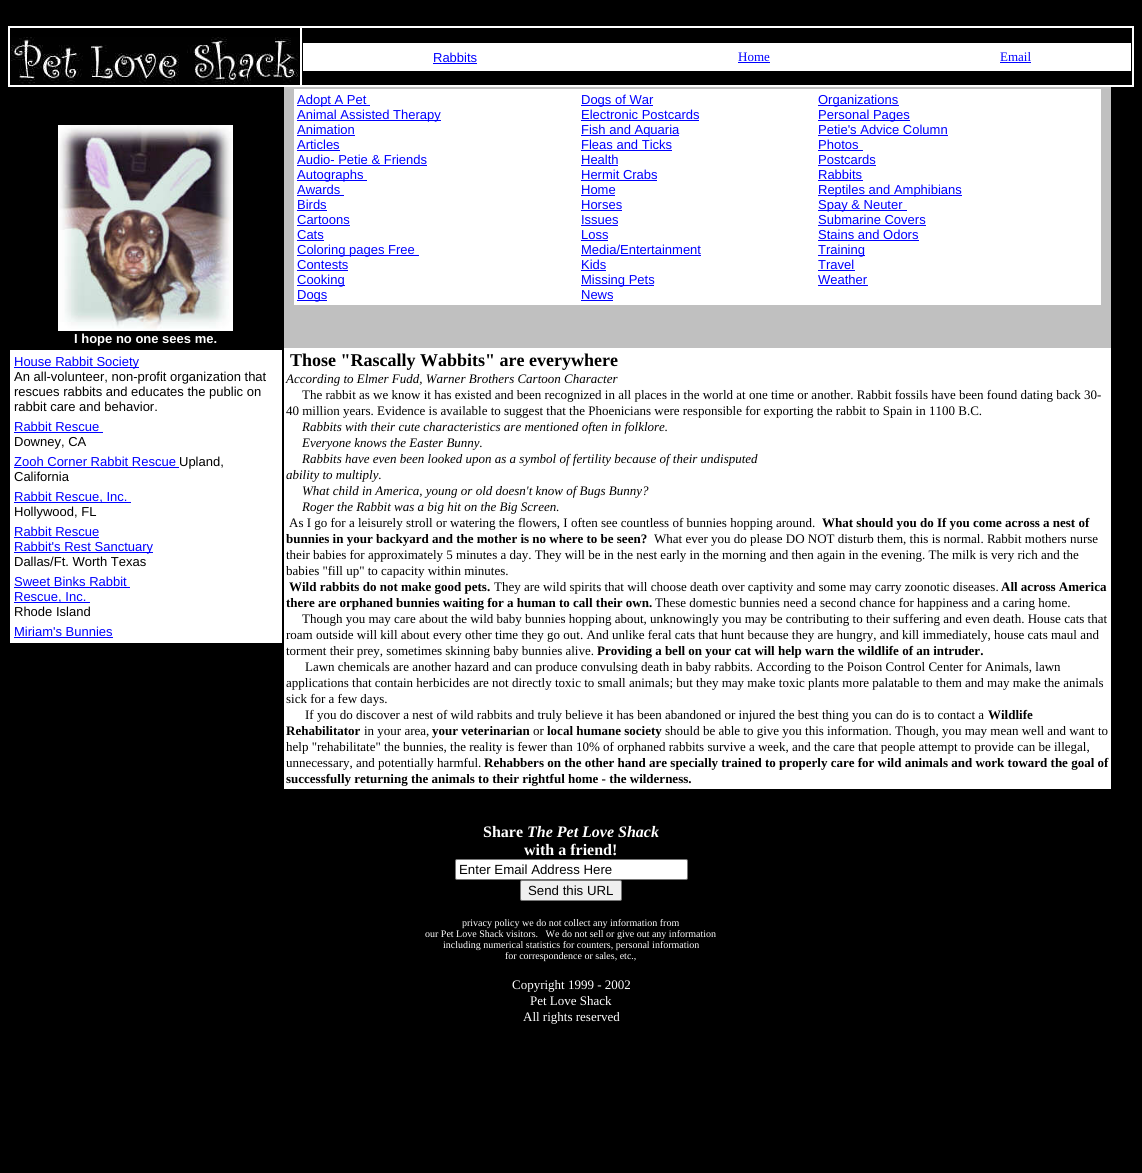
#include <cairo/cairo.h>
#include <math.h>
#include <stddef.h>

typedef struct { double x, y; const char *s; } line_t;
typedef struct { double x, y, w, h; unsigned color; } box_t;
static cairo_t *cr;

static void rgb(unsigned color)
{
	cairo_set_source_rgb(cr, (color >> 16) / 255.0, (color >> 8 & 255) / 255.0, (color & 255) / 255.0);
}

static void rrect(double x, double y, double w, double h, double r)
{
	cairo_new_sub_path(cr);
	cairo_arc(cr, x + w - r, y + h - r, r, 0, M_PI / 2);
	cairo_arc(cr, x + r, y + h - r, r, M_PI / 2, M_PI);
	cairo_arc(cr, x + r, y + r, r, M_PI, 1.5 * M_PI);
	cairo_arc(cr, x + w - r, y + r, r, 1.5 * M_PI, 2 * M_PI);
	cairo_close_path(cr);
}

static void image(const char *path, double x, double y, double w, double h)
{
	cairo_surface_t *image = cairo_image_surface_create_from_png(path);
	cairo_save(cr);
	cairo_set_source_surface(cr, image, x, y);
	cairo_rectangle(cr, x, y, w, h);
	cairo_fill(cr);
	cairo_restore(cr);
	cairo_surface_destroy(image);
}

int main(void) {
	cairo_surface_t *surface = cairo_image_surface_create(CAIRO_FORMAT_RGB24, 1142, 1173);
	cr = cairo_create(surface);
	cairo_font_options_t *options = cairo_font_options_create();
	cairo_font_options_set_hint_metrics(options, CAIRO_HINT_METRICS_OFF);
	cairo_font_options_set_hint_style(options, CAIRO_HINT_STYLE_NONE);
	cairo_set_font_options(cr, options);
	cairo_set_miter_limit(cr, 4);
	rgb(0x000000);
	cairo_paint(cr);
	rgb(0xffffff);
	cairo_rectangle(cr, 8, 26, 1126, 61);
	cairo_fill(cr);
	rgb(0x000000);
	cairo_rectangle(cr, 10, 28, 290, 57);
	cairo_fill(cr);
	image("img/1.png", 11, 37, 288, 47);
	{
		static const box_t items[] = {
			{302, 28, 830, 57, 0x000000},
			{303, 43, 828, 28, 0xffffff},
			{433, 63, 44, 1, 0x0000ff},
			{738, 62, 32, 1, 0x0000ff},
			{1000, 62, 31, 1, 0x0000ff},
			{284, 348, 827, 441, 0xffffff},
			{284, 87, 827, 261, 0xc0c0c0},
			{294, 89, 807, 216, 0xffffff},
			{297, 105, 73, 1, 0x0000ff},
			{297, 120, 144, 1, 0x0000ff},
			{297, 135, 58, 1, 0x0000ff},
			{297, 150, 43, 1, 0x0000ff},
			{297, 165, 130, 1, 0x0000ff},
			{297, 180, 70, 1, 0x0000ff},
			{297, 195, 47, 1, 0x0000ff},
			{297, 210, 30, 1, 0x0000ff},
			{297, 225, 53, 1, 0x0000ff},
			{297, 240, 27, 1, 0x0000ff},
			{297, 255, 122, 1, 0x0000ff},
			{297, 270, 51, 1, 0x0000ff},
			{297, 285, 48, 1, 0x0000ff},
			{297, 300, 30, 1, 0x0000ff},
			{581, 105, 72, 1, 0x0000ff},
			{581, 120, 118, 1, 0x0000ff},
			{581, 135, 98, 1, 0x0000ff},
			{581, 150, 91, 1, 0x0000ff},
			{581, 165, 37, 1, 0x0000ff},
			{581, 180, 76, 1, 0x0000ff},
			{581, 195, 34, 1, 0x0000ff},
			{581, 210, 41, 1, 0x0000ff},
			{581, 225, 37, 1, 0x0000ff},
			{581, 240, 27, 1, 0x0000ff},
			{581, 255, 120, 1, 0x0000ff},
			{581, 270, 25, 1, 0x0000ff},
			{581, 285, 73, 1, 0x0000ff},
			{581, 300, 32, 1, 0x0000ff},
			{818, 105, 81, 1, 0x0000ff},
			{818, 120, 92, 1, 0x0000ff},
			{818, 135, 130, 1, 0x0000ff},
			{818, 150, 45, 1, 0x0000ff},
			{818, 165, 58, 1, 0x0000ff},
			{818, 180, 45, 1, 0x0000ff},
			{818, 195, 144, 1, 0x0000ff},
			{818, 210, 89, 1, 0x0000ff},
			{818, 225, 108, 1, 0x0000ff},
			{818, 240, 101, 1, 0x0000ff},
			{818, 255, 47, 1, 0x0000ff},
			{818, 270, 37, 1, 0x0000ff},
			{818, 285, 50, 1, 0x0000ff},
		};
		for (size_t i = 0; i < sizeof items / sizeof *items; i++) {
			rgb(items[i].color);
			cairo_rectangle(cr, items[i].x, items[i].y, items[i].w, items[i].h);
			cairo_fill(cr);
		}
	}
	image("img/2.png", 58, 125, 175, 206);
	{
		static const box_t items[] = {
			{10, 350, 272, 293, 0xffffff},
			{14, 367, 125, 1, 0x0000ff},
			{14, 432, 89, 1, 0x0000ff},
			{14, 467, 165, 1, 0x0000ff},
			{14, 502, 117, 1, 0x0000ff},
			{14, 537, 85, 1, 0x0000ff},
			{14, 552, 139, 1, 0x0000ff},
			{14, 587, 116, 1, 0x0000ff},
			{14, 602, 76, 1, 0x0000ff},
			{14, 637, 99, 1, 0x0000ff},
		};
		for (size_t i = 0; i < sizeof items / sizeof *items; i++) {
			rgb(items[i].color);
			cairo_rectangle(cr, items[i].x, items[i].y, items[i].w, items[i].h);
			cairo_fill(cr);
		}
	}
	rgb(0xffffff);
	rrect(455.5, 859.5, 232, 20, 1.5);
	cairo_fill_preserve(cr);
	rgb(0x767676);
	cairo_set_line_width(cr, 1);
	cairo_stroke(cr);
	rgb(0xefefef);
	rrect(520.5, 880.5, 101, 20, 1.5);
	cairo_fill_preserve(cr);
	rgb(0x767676);
	cairo_stroke(cr);
	cairo_select_font_face(cr, "Liberation Sans", CAIRO_FONT_SLANT_NORMAL, CAIRO_FONT_WEIGHT_NORMAL);
	cairo_set_font_size(cr, 13);
	rgb(0x0000ff);
	cairo_move_to(cr, 433, 62);
	cairo_show_text(cr, "Rabbits");
	cairo_select_font_face(cr, "Liberation Serif", CAIRO_FONT_SLANT_NORMAL, CAIRO_FONT_WEIGHT_NORMAL);
	cairo_move_to(cr, 738, 61);
	cairo_show_text(cr, "Home");
	cairo_move_to(cr, 1000, 61);
	cairo_show_text(cr, "Email");
	cairo_select_font_face(cr, "Liberation Sans", CAIRO_FONT_SLANT_NORMAL, CAIRO_FONT_WEIGHT_NORMAL);
	{
		static const line_t items[] = {
			{297, 104, "Adopt A Pet"},
			{297, 119, "Animal Assisted Therapy"},
			{297, 134, "Animation"},
			{297, 149, "Articles"},
			{297, 164, "Audio- Petie & Friends"},
			{297, 179, "Autographs"},
			{297, 194, "Awards"},
			{297, 209, "Birds"},
			{297, 224, "Cartoons"},
			{297, 239, "Cats"},
			{297, 254, "Coloring pages Free"},
			{297, 269, "Contests"},
			{297, 284, "Cooking"},
			{297, 299, "Dogs"},
			{581, 104, "Dogs of War"},
			{581, 119, "Electronic Postcards"},
			{581, 134, "Fish and Aquaria"},
			{581, 149, "Fleas and Ticks"},
			{581, 164, "Health"},
			{581, 179, "Hermit Crabs"},
			{581, 194, "Home"},
			{581, 209, "Horses"},
			{581, 224, "Issues"},
			{581, 239, "Loss"},
			{581, 254, "Media/Entertainment"},
			{581, 269, "Kids"},
			{581, 284, "Missing Pets"},
			{581, 299, "News"},
			{818, 104, "Organizations"},
			{818, 119, "Personal Pages"},
			{818, 134, "Petie's Advice Column"},
			{818, 149, "Photos"},
			{818, 164, "Postcards"},
			{818, 179, "Rabbits"},
			{818, 194, "Reptiles and Amphibians"},
			{818, 209, "Spay & Neuter"},
			{818, 224, "Submarine Covers"},
			{818, 239, "Stains and Odors"},
			{818, 254, "Training"},
			{818, 269, "Travel"},
			{818, 284, "Weather"},
		};
		for (size_t i = 0; i < sizeof items / sizeof *items; i++) {
			cairo_move_to(cr, items[i].x, items[i].y);
			cairo_show_text(cr, items[i].s);
		}
	}
	cairo_select_font_face(cr, "Liberation Sans", CAIRO_FONT_SLANT_NORMAL, CAIRO_FONT_WEIGHT_BOLD);
	rgb(0xffffff);
	cairo_move_to(cr, 74, 343);
	cairo_show_text(cr, "I hope no one sees me.");
	cairo_select_font_face(cr, "Liberation Sans", CAIRO_FONT_SLANT_NORMAL, CAIRO_FONT_WEIGHT_NORMAL);
	rgb(0x0000ff);
	cairo_move_to(cr, 14, 366);
	cairo_show_text(cr, "House Rabbit Society");
	rgb(0x000000);
	{
		static const line_t items[] = {
			{14, 381, "An all-volunteer, non-profit organization that"},
			{14, 396, "rescues rabbits and educates the public on"},
			{14, 411, "rabbit care and behavior."},
		};
		for (size_t i = 0; i < sizeof items / sizeof *items; i++) {
			cairo_move_to(cr, items[i].x, items[i].y);
			cairo_show_text(cr, items[i].s);
		}
	}
	rgb(0x0000ff);
	cairo_move_to(cr, 14, 431);
	cairo_show_text(cr, "Rabbit Rescue");
	rgb(0x000000);
	cairo_move_to(cr, 14, 446);
	cairo_show_text(cr, "Downey, CA");
	rgb(0x0000ff);
	cairo_move_to(cr, 14, 466);
	cairo_show_text(cr, "Zooh Corner Rabbit Rescue");
	rgb(0x000000);
	cairo_move_to(cr, 179, 466);
	cairo_show_text(cr, "Upland,");
	cairo_move_to(cr, 14, 481);
	cairo_show_text(cr, "California");
	rgb(0x0000ff);
	cairo_move_to(cr, 14, 501);
	cairo_show_text(cr, "Rabbit Rescue, Inc.");
	rgb(0x000000);
	cairo_move_to(cr, 14, 516);
	cairo_show_text(cr, "Hollywood, FL");
	rgb(0x0000ff);
	cairo_move_to(cr, 14, 536);
	cairo_show_text(cr, "Rabbit Rescue");
	cairo_move_to(cr, 14, 551);
	cairo_show_text(cr, "Rabbit's Rest Sanctuary");
	rgb(0x000000);
	cairo_move_to(cr, 14, 566);
	cairo_show_text(cr, "Dallas/Ft. Worth Texas");
	rgb(0x0000ff);
	cairo_move_to(cr, 14, 586);
	cairo_show_text(cr, "Sweet Binks Rabbit");
	cairo_move_to(cr, 14, 601);
	cairo_show_text(cr, "Rescue, Inc.");
	rgb(0x000000);
	cairo_move_to(cr, 14, 616);
	cairo_show_text(cr, "Rhode Island");
	rgb(0x0000ff);
	cairo_move_to(cr, 14, 636);
	cairo_show_text(cr, "Miriam's Bunnies");
	cairo_select_font_face(cr, "Liberation Serif", CAIRO_FONT_SLANT_NORMAL, CAIRO_FONT_WEIGHT_BOLD);
	cairo_set_font_size(cr, 18);
	rgb(0x000000);
	cairo_move_to(cr, 290, 366);
	cairo_show_text(cr, "Those \"Rascally Wabbits\" are everywhere");
	cairo_select_font_face(cr, "Liberation Serif", CAIRO_FONT_SLANT_ITALIC, CAIRO_FONT_WEIGHT_NORMAL);
	cairo_set_font_size(cr, 13);
	cairo_move_to(cr, 286, 383);
	cairo_show_text(cr, "According to Elmer Fudd, Warner Brothers Cartoon Character");
	cairo_select_font_face(cr, "Liberation Serif", CAIRO_FONT_SLANT_NORMAL, CAIRO_FONT_WEIGHT_NORMAL);
	cairo_move_to(cr, 302, 399);
	cairo_show_text(cr, "The rabbit as we know it has existed and been recognized in all places in the world at one time or another. Rabbit fossils have been found dating back 30-");
	cairo_move_to(cr, 286, 415);
	cairo_show_text(cr, "40 million years. Evidence is available to suggest that the Phoenicians were responsible for exporting the rabbit to Spain in 1100 B.C.");
	cairo_select_font_face(cr, "Liberation Serif", CAIRO_FONT_SLANT_ITALIC, CAIRO_FONT_WEIGHT_NORMAL);
	{
		static const line_t items[] = {
			{302, 431, "Rabbits with their cute characteristics are mentioned often in folklore."},
			{302, 447, "Everyone knows the Easter Bunny."},
			{302, 463, "Rabbits have even been looked upon as a symbol of fertility because of their undisputed"},
			{286, 479, "ability to multiply."},
			{302, 495, "What child in America, young or old doesn't know of Bugs Bunny?"},
			{302, 511, "Roger the Rabbit was a big hit on the Big Screen."},
		};
		for (size_t i = 0; i < sizeof items / sizeof *items; i++) {
			cairo_move_to(cr, items[i].x, items[i].y);
			cairo_show_text(cr, items[i].s);
		}
	}
	cairo_select_font_face(cr, "Liberation Serif", CAIRO_FONT_SLANT_NORMAL, CAIRO_FONT_WEIGHT_NORMAL);
	cairo_move_to(cr, 289, 527);
	cairo_show_text(cr, "As I go for a leisurely stroll or watering the flowers, I often see countless of bunnies hopping around.");
	cairo_select_font_face(cr, "Liberation Serif", CAIRO_FONT_SLANT_NORMAL, CAIRO_FONT_WEIGHT_BOLD);
	cairo_move_to(cr, 822, 527);
	cairo_show_text(cr, "What should you do If you come across a nest of");
	cairo_move_to(cr, 286, 543);
	cairo_show_text(cr, "bunnies in your backyard and the mother is no where to be seen?");
	cairo_select_font_face(cr, "Liberation Serif", CAIRO_FONT_SLANT_NORMAL, CAIRO_FONT_WEIGHT_NORMAL);
	{
		static const line_t items[] = {
			{654, 543, "What ever you do please DO NOT disturb them, this is normal. Rabbit mothers nurse"},
			{286, 559, "their babies for approximately 5 minutes a day. They will be in the nest early in the morning and then again in the evening. The milk is very rich and the"},
			{286, 575, "babies \"fill up\" to capacity within minutes."},
		};
		for (size_t i = 0; i < sizeof items / sizeof *items; i++) {
			cairo_move_to(cr, items[i].x, items[i].y);
			cairo_show_text(cr, items[i].s);
		}
	}
	cairo_select_font_face(cr, "Liberation Serif", CAIRO_FONT_SLANT_NORMAL, CAIRO_FONT_WEIGHT_BOLD);
	cairo_move_to(cr, 289, 591);
	cairo_show_text(cr, "Wild rabbits do not make good pets.");
	cairo_select_font_face(cr, "Liberation Serif", CAIRO_FONT_SLANT_NORMAL, CAIRO_FONT_WEIGHT_NORMAL);
	cairo_move_to(cr, 494, 591);
	cairo_show_text(cr, "They are wild spirits that will choose death over captivity and some may carry zoonotic diseases.");
	cairo_select_font_face(cr, "Liberation Serif", CAIRO_FONT_SLANT_NORMAL, CAIRO_FONT_WEIGHT_BOLD);
	cairo_move_to(cr, 1001, 591);
	cairo_show_text(cr, "All across America");
	cairo_move_to(cr, 286, 607);
	cairo_show_text(cr, "there are orphaned bunnies waiting for a human to call their own.");
	cairo_select_font_face(cr, "Liberation Serif", CAIRO_FONT_SLANT_NORMAL, CAIRO_FONT_WEIGHT_NORMAL);
	{
		static const line_t items[] = {
			{655, 607, "These domestic bunnies need a second chance for happiness and a caring home."},
			{302, 623, "Though you may care about the wild baby bunnies hopping about, unknowingly you may be contributing to their suffering and even death. House cats that"},
			{286, 639, "roam outside will kill about every other time they go out. And unlike feral cats that hunt because they are hungry, and kill immediately, house cats maul and"},
			{286, 655, "torment their prey, sometimes skinning baby bunnies alive."},
		};
		for (size_t i = 0; i < sizeof items / sizeof *items; i++) {
			cairo_move_to(cr, items[i].x, items[i].y);
			cairo_show_text(cr, items[i].s);
		}
	}
	cairo_select_font_face(cr, "Liberation Serif", CAIRO_FONT_SLANT_NORMAL, CAIRO_FONT_WEIGHT_BOLD);
	cairo_move_to(cr, 597, 655);
	cairo_show_text(cr, "Providing a bell on your cat will help warn the wildlife of an intruder.");
	cairo_select_font_face(cr, "Liberation Serif", CAIRO_FONT_SLANT_NORMAL, CAIRO_FONT_WEIGHT_NORMAL);
	{
		static const line_t items[] = {
			{305, 671, "Lawn chemicals are another hazard and can produce convulsing death in baby rabbits. According to the Poison Control Center for Animals, lawn"},
			{286, 687, "applications that contain herbicides are not directly toxic to small animals; but they may make toxic plants more palatable to them and may make the animals"},
			{286, 703, "sick for a few days."},
			{305, 719, "If you do discover a nest of wild rabbits and truly believe it has been abandoned or injured the best thing you can do is to contact a"},
		};
		for (size_t i = 0; i < sizeof items / sizeof *items; i++) {
			cairo_move_to(cr, items[i].x, items[i].y);
			cairo_show_text(cr, items[i].s);
		}
	}
	cairo_select_font_face(cr, "Liberation Serif", CAIRO_FONT_SLANT_NORMAL, CAIRO_FONT_WEIGHT_BOLD);
	cairo_move_to(cr, 988, 719);
	cairo_show_text(cr, "Wildlife");
	cairo_move_to(cr, 286, 735);
	cairo_show_text(cr, "Rehabilitator");
	cairo_select_font_face(cr, "Liberation Serif", CAIRO_FONT_SLANT_NORMAL, CAIRO_FONT_WEIGHT_NORMAL);
	cairo_move_to(cr, 364, 735);
	cairo_show_text(cr, "in your area,");
	cairo_select_font_face(cr, "Liberation Serif", CAIRO_FONT_SLANT_NORMAL, CAIRO_FONT_WEIGHT_BOLD);
	cairo_move_to(cr, 432, 735);
	cairo_show_text(cr, "your veterinarian");
	cairo_select_font_face(cr, "Liberation Serif", CAIRO_FONT_SLANT_NORMAL, CAIRO_FONT_WEIGHT_NORMAL);
	cairo_move_to(cr, 533, 735);
	cairo_show_text(cr, "or");
	cairo_select_font_face(cr, "Liberation Serif", CAIRO_FONT_SLANT_NORMAL, CAIRO_FONT_WEIGHT_BOLD);
	cairo_move_to(cr, 547, 735);
	cairo_show_text(cr, "local humane society");
	cairo_select_font_face(cr, "Liberation Serif", CAIRO_FONT_SLANT_NORMAL, CAIRO_FONT_WEIGHT_NORMAL);
	{
		static const line_t items[] = {
			{665, 735, "should be able to give you this information. Though, you may mean well and want to"},
			{286, 751, "help \"rehabilitate\" the bunnies, the reality is fewer than 10% of orphaned rabbits survive a week, and the care that people attempt to provide can be illegal,"},
			{286, 767, "unnecessary, and potentially harmful."},
		};
		for (size_t i = 0; i < sizeof items / sizeof *items; i++) {
			cairo_move_to(cr, items[i].x, items[i].y);
			cairo_show_text(cr, items[i].s);
		}
	}
	cairo_select_font_face(cr, "Liberation Serif", CAIRO_FONT_SLANT_NORMAL, CAIRO_FONT_WEIGHT_BOLD);
	cairo_move_to(cr, 484, 767);
	cairo_show_text(cr, "Rehabbers on the other hand are specially trained to properly care for wild animals and work toward the goal of");
	cairo_move_to(cr, 286, 783);
	cairo_show_text(cr, "successfully returning the animals to their rightful home - the wilderness.");
	cairo_set_font_size(cr, 16);
	rgb(0xffffff);
	cairo_move_to(cr, 483, 837);
	cairo_show_text(cr, "Share");
	cairo_select_font_face(cr, "Liberation Serif", CAIRO_FONT_SLANT_ITALIC, CAIRO_FONT_WEIGHT_BOLD);
	cairo_move_to(cr, 527, 837);
	cairo_show_text(cr, "The Pet Love Shack");
	cairo_select_font_face(cr, "Liberation Serif", CAIRO_FONT_SLANT_NORMAL, CAIRO_FONT_WEIGHT_BOLD);
	cairo_move_to(cr, 524, 855);
	cairo_show_text(cr, "with a friend!");
	cairo_select_font_face(cr, "Liberation Sans", CAIRO_FONT_SLANT_NORMAL, CAIRO_FONT_WEIGHT_NORMAL);
	cairo_set_font_size(cr, 13.25);
	rgb(0x000000);
	cairo_move_to(cr, 459, 874);
	cairo_show_text(cr, "Enter Email Address Here");
	cairo_move_to(cr, 528, 895);
	cairo_show_text(cr, "Send this URL");
	cairo_select_font_face(cr, "Liberation Serif", CAIRO_FONT_SLANT_NORMAL, CAIRO_FONT_WEIGHT_NORMAL);
	cairo_set_font_size(cr, 10);
	rgb(0xffffff);
	{
		static const line_t items[] = {
			{462, 926, "privacy policy we do not collect any information from"},
			{425, 937, "our Pet Love Shack visitors.   We do not sell or give out any information"},
			{443, 948, "including numerical statistics for counters, personal information"},
			{505, 959, "for correspondence or sales, etc.,"},
		};
		for (size_t i = 0; i < sizeof items / sizeof *items; i++) {
			cairo_move_to(cr, items[i].x, items[i].y);
			cairo_show_text(cr, items[i].s);
		}
	}
	cairo_set_font_size(cr, 13);
	{
		static const line_t items[] = {
			{512, 989, "Copyright 1999 - 2002"},
			{530, 1005, "Pet Love Shack"},
			{523, 1021, "All rights reserved"},
		};
		for (size_t i = 0; i < sizeof items / sizeof *items; i++) {
			cairo_move_to(cr, items[i].x, items[i].y);
			cairo_show_text(cr, items[i].s);
		}
	}
	cairo_surface_write_to_png(surface, "page.png");
	cairo_font_options_destroy(options);
	cairo_destroy(cr);
	cairo_surface_destroy(surface);
	return 0;
}
